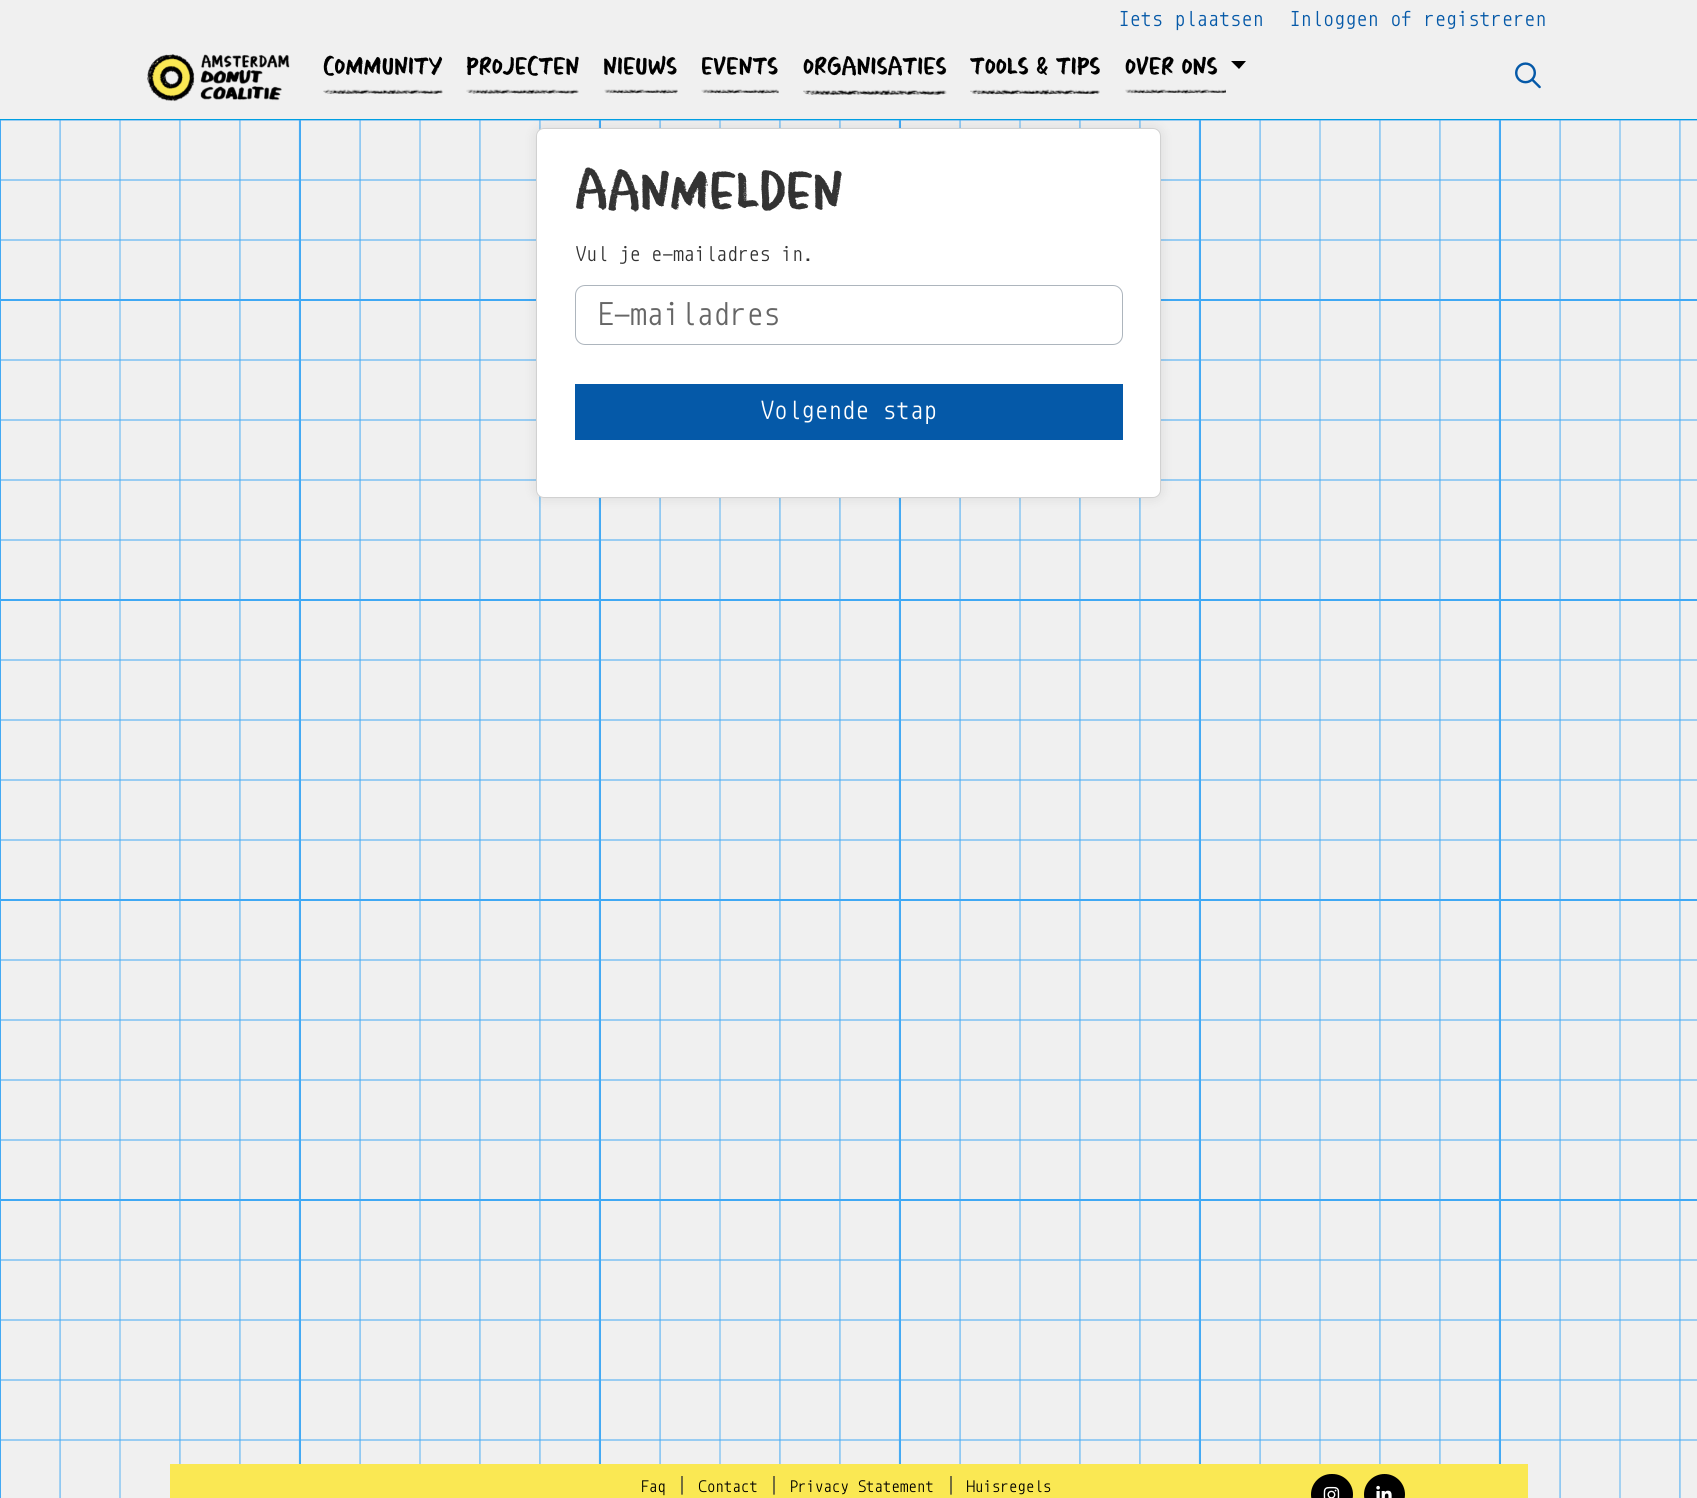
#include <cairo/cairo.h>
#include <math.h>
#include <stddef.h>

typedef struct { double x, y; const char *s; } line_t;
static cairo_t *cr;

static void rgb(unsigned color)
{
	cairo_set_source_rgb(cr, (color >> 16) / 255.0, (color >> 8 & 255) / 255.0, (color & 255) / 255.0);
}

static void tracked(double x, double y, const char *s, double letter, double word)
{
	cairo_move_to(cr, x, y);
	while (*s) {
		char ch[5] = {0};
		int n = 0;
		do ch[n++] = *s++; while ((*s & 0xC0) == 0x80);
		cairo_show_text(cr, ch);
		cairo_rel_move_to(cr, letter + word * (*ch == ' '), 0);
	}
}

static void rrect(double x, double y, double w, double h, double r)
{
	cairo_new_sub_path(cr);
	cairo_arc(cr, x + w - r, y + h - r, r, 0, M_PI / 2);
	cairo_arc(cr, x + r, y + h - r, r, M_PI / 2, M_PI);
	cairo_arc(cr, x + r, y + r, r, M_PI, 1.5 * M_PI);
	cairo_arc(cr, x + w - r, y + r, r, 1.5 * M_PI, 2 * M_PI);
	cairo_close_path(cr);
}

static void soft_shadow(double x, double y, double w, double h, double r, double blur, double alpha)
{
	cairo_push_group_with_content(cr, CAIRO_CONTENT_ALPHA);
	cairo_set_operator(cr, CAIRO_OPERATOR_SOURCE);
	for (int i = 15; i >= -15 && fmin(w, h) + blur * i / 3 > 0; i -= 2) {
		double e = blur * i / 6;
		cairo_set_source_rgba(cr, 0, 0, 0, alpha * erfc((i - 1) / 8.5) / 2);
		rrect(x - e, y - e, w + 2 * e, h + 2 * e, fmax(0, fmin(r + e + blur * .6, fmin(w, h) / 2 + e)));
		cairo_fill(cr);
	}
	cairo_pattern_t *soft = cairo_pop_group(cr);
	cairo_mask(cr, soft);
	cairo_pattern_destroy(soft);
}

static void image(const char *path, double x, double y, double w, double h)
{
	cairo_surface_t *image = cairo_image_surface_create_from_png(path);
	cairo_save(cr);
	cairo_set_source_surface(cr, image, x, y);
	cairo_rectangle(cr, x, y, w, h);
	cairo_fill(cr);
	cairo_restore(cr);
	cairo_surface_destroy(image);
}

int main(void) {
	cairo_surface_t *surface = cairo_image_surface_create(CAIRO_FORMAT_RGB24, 1697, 1498);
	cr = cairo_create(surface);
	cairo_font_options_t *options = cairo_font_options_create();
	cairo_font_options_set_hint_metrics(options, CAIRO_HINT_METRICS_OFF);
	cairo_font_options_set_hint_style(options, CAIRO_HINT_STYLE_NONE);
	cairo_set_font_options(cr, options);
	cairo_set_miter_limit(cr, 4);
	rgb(0xf0f0f0);
	cairo_paint(cr);
	image("img/1.png", 0, 120, 1697, 1378);
	rgb(0x000000);
	soft_shadow(536, 128, 625, 370, 8, 6, 0.1);
	rgb(0x009ee2);
	cairo_rectangle(cr, 0, 119, 1697, 1);
	cairo_fill(cr);
	image("img/2.png", 147, 54, 143, 48);
	image("img/3.png", 323, 89, 120, 5);
	image("img/4.png", 466, 89, 113, 5);
	image("img/5.png", 604, 89, 74, 5);
	image("img/6.png", 701, 89, 78, 5);
	image("img/7.png", 803, 89, 144, 6);
	image("img/8.png", 970, 89, 130, 6);
	image("img/9.png", 1125, 89, 101, 5);
	rgb(0x000000);
	cairo_new_path(cr);
	cairo_move_to(cr, 1231, 61);
	cairo_line_to(cr, 1246, 61);
	cairo_line_to(cr, 1239, 69);
	cairo_close_path(cr);
	cairo_fill(cr);
	image("img/10.png", 1515, 62, 26, 27);
	rgb(0xffffff);
	rrect(536, 128, 625, 370, 8);
	cairo_fill(cr);
	rrect(536.5, 128.5, 624, 369, 7.5);
	cairo_set_source_rgba(cr, 0, 0, 0, 0.18);
	cairo_set_line_width(cr, 1);
	cairo_stroke(cr);
	rrect(575.5, 285.5, 547, 59, 9.5);
	rgb(0xadb5bd);
	cairo_stroke(cr);
	rgb(0x0559a8);
	cairo_rectangle(cr, 575, 384, 548, 56);
	cairo_fill(cr);
	rgb(0xfae853);
	cairo_rectangle(cr, 170, 1464, 1358, 34);
	cairo_fill(cr);
	rgb(0x000000);
	rrect(1311, 1474, 42, 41, 20.5);
	cairo_fill(cr);
	image("img/11.png", 1323, 1486, 17, 12);
	cairo_arc(cr, 1384.5, 1494.5, 20.5, 0, 2 * M_PI);
	cairo_fill(cr);
	image("img/12.png", 1376, 1485, 16, 13);
	cairo_select_font_face(cr, "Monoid", CAIRO_FONT_SLANT_NORMAL, CAIRO_FONT_WEIGHT_NORMAL);
	cairo_set_font_size(cr, 16.4);
	rgb(0x0559a8);
	tracked(1118, 26, "Iets plaatsen", 0.25, 0);
	tracked(1289, 26, "Inloggen of registreren", 0.25, 0);
	cairo_select_font_face(cr, "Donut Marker", CAIRO_FONT_SLANT_NORMAL, CAIRO_FONT_WEIGHT_NORMAL);
	cairo_set_font_size(cr, 26);
	rgb(0x000000);
	{
		static const line_t items[] = {
			{323, 75, "Community"},
			{466, 75, "Projecten"},
			{603, 75, "Nieuws"},
			{701, 75, "Events"},
			{803, 75, "Organisaties"},
			{970, 75, "Tools & Tips"},
			{1125, 75, "Over ons"},
		};
		for (size_t i = 0; i < sizeof items / sizeof *items; i++) {
			cairo_move_to(cr, items[i].x, items[i].y);
			cairo_show_text(cr, items[i].s);
		}
	}
	cairo_set_font_size(cr, 56);
	rgb(0x333333);
	cairo_move_to(cr, 575, 210);
	cairo_show_text(cr, "Aanmelden");
	cairo_select_font_face(cr, "Monoid", CAIRO_FONT_SLANT_NORMAL, CAIRO_FONT_WEIGHT_NORMAL);
	cairo_set_font_size(cr, 16.25);
	cairo_move_to(cr, 575, 261);
	cairo_show_text(cr, "Vul je e-mailadres in.");
	cairo_set_font_size(cr, 25);
	rgb(0x666666);
	cairo_move_to(cr, 596, 325);
	cairo_show_text(cr, "E-mailadres");
	cairo_set_font_size(cr, 20);
	rgb(0xffffff);
	tracked(760, 419, "Volgende stap", 0.25, 0);
	cairo_set_font_size(cr, 12.75);
	rgb(0x000000);
	cairo_move_to(cr, 640, 1492);
	cairo_show_text(cr, "Faq");
	cairo_set_font_size(cr, 16);
	rgb(0x333333);
	cairo_move_to(cr, 676, 1492);
	cairo_show_text(cr, "|");
	cairo_set_font_size(cr, 12.75);
	rgb(0x000000);
	cairo_move_to(cr, 698, 1492);
	cairo_show_text(cr, "Contact");
	cairo_set_font_size(cr, 16);
	rgb(0x333333);
	cairo_move_to(cr, 768, 1492);
	cairo_show_text(cr, "|");
	cairo_set_font_size(cr, 12.75);
	rgb(0x000000);
	cairo_move_to(cr, 789, 1492);
	cairo_show_text(cr, "Privacy Statement");
	cairo_set_font_size(cr, 16);
	rgb(0x333333);
	cairo_move_to(cr, 945, 1492);
	cairo_show_text(cr, "|");
	cairo_set_font_size(cr, 12.75);
	rgb(0x000000);
	cairo_move_to(cr, 966, 1492);
	cairo_show_text(cr, "Huisregels");
	cairo_surface_write_to_png(surface, "page.png");
	cairo_font_options_destroy(options);
	cairo_destroy(cr);
	cairo_surface_destroy(surface);
	return 0;
}
